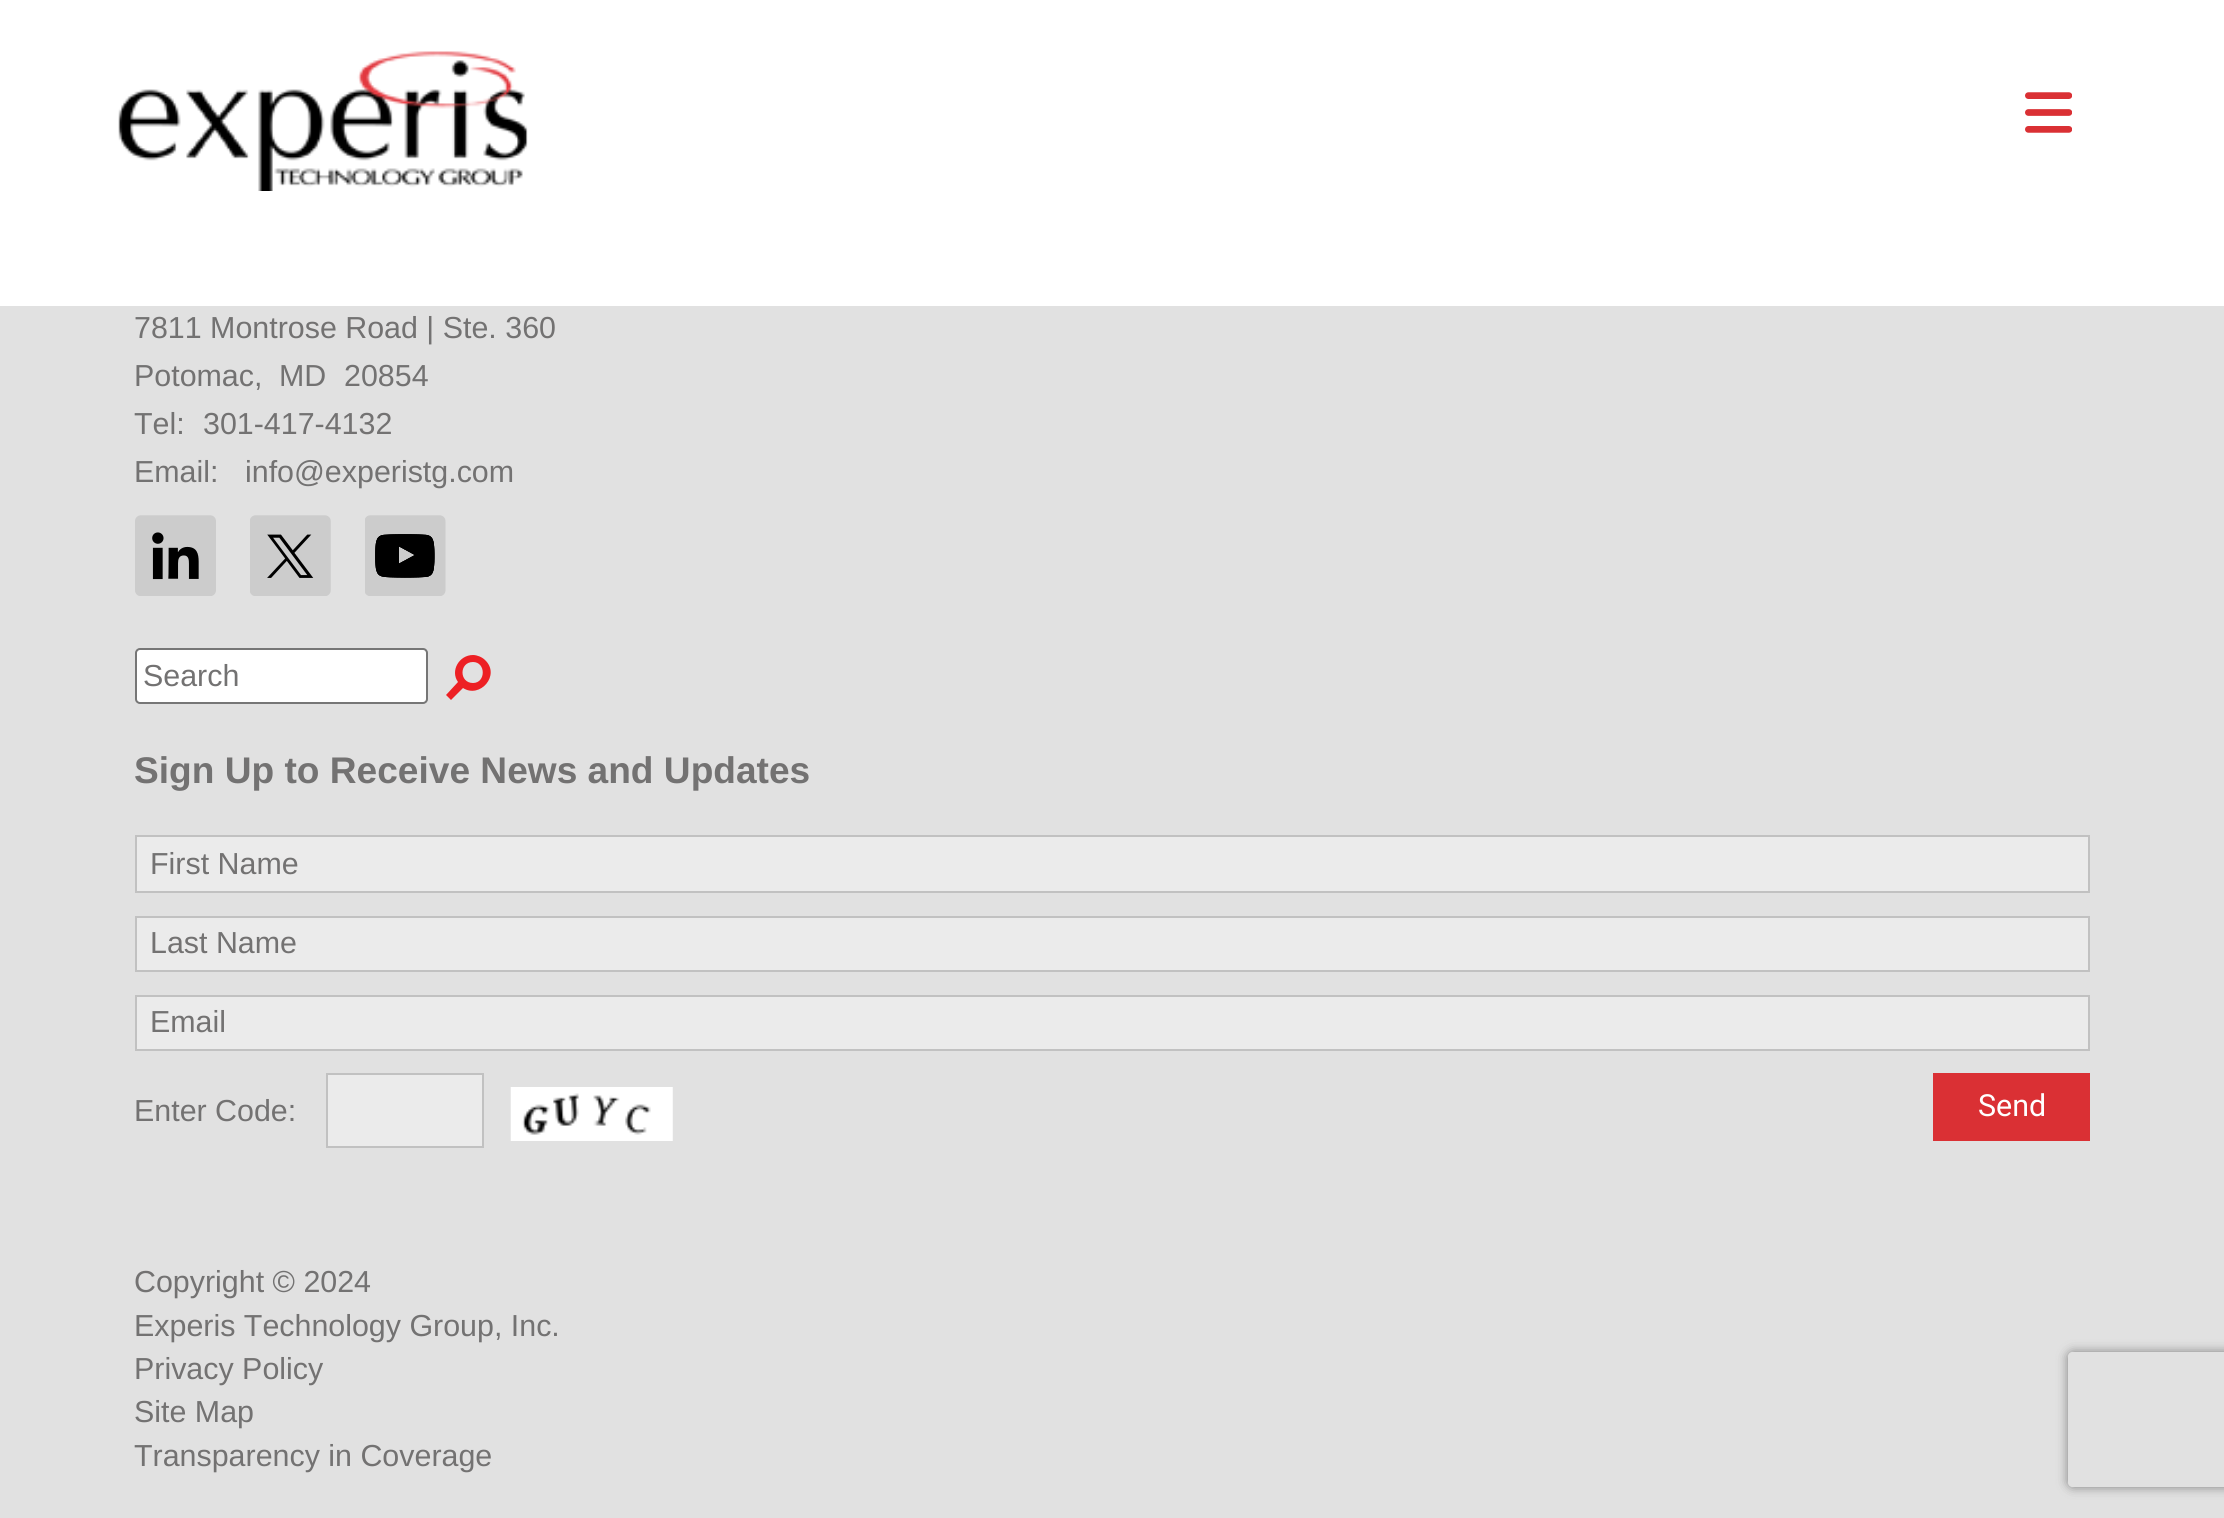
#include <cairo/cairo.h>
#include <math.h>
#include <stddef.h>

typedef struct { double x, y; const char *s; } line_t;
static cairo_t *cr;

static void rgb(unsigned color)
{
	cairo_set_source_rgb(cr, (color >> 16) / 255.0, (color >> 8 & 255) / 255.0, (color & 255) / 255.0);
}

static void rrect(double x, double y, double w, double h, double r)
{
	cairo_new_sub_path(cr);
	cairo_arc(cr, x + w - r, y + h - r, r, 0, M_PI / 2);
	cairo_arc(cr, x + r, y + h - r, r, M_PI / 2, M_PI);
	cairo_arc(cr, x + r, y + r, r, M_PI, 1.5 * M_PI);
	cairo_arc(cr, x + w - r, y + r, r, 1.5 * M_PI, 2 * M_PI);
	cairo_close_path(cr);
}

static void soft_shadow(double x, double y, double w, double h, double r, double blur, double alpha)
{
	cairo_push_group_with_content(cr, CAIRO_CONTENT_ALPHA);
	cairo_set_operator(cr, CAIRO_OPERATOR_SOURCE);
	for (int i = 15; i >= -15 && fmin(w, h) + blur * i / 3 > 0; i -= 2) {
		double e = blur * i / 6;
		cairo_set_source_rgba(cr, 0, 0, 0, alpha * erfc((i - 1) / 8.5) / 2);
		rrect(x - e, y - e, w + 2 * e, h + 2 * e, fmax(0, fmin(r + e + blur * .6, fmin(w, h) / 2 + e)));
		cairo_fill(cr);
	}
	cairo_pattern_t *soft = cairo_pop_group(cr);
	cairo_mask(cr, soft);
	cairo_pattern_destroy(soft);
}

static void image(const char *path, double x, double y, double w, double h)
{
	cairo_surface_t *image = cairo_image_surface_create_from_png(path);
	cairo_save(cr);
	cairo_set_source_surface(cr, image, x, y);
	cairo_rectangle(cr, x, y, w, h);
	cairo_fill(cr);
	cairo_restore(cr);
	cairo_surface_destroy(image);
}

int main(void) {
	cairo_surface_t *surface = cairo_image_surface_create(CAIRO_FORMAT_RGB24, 2224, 1518);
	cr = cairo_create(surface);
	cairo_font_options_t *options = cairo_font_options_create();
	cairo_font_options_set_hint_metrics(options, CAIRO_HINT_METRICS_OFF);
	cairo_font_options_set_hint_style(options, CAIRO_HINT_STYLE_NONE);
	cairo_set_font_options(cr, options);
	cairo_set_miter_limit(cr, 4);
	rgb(0xe1e1e1);
	cairo_paint(cr);
	rgb(0xffffff);
	cairo_rectangle(cr, 0, 0, 2224, 306);
	cairo_fill(cr);
	image("img/1.png", 118, 51, 410, 140);
	image("img/2.png", 2025, 92, 47, 41);
	image("img/3.png", 135, 515, 81, 81);
	image("img/4.png", 250, 515, 81, 81);
	image("img/5.png", 365, 515, 81, 81);
	rrect(136, 649, 291, 54, 4);
	cairo_fill_preserve(cr);
	rgb(0x767676);
	cairo_stroke(cr);
	rgb(0xed2024);
	cairo_new_path(cr);
	cairo_move_to(cr, 473, 655);
	cairo_curve_to(cr, 459, 655, 450, 671, 458, 682);
	cairo_line_to(cr, 446, 695);
	cairo_line_to(cr, 451, 700);
	cairo_line_to(cr, 463, 688);
	cairo_curve_to(cr, 480, 699, 501, 675, 485, 660);
	cairo_curve_to(cr, 482, 657, 477, 655, 473, 655);
	cairo_close_path(cr);
	cairo_move_to(cr, 473, 683);
	cairo_curve_to(cr, 459, 683, 459, 662, 473, 662);
	cairo_curve_to(cr, 486, 662, 486, 683, 473, 683);
	cairo_close_path(cr);
	cairo_fill(cr);
	rgb(0xebebeb);
	cairo_rectangle(cr, 136, 836, 1953, 56);
	cairo_fill_preserve(cr);
	rgb(0xc1c1c1);
	cairo_stroke(cr);
	rgb(0xebebeb);
	cairo_rectangle(cr, 136, 917, 1953, 54);
	cairo_fill_preserve(cr);
	rgb(0xc1c1c1);
	cairo_stroke(cr);
	rgb(0xebebeb);
	cairo_rectangle(cr, 136, 996, 1953, 54);
	cairo_fill_preserve(cr);
	rgb(0xc1c1c1);
	cairo_stroke(cr);
	rgb(0xebebeb);
	cairo_rectangle(cr, 327, 1074, 156, 73);
	cairo_fill_preserve(cr);
	rgb(0xc1c1c1);
	cairo_stroke(cr);
	image("img/6.png", 510, 1087, 163, 54);
	rgb(0xda3034);
	cairo_rectangle(cr, 1933, 1073, 157, 68);
	cairo_fill(cr);
	cairo_save(cr);
	cairo_set_fill_rule(cr, CAIRO_FILL_RULE_EVEN_ODD);
	cairo_new_path(cr);
	cairo_move_to(cr, 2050, 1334);
	cairo_line_to(cr, 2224, 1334);
	cairo_line_to(cr, 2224, 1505);
	cairo_line_to(cr, 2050, 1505);
	cairo_close_path(cr);
	cairo_move_to(cr, 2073, 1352);
	cairo_line_to(cr, 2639, 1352);
	cairo_curve_to(cr, 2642, 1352, 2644, 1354, 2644, 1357);
	cairo_line_to(cr, 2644, 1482);
	cairo_curve_to(cr, 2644, 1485, 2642, 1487, 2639, 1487);
	cairo_line_to(cr, 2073, 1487);
	cairo_curve_to(cr, 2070, 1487, 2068, 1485, 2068, 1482);
	cairo_line_to(cr, 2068, 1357);
	cairo_curve_to(cr, 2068, 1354, 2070, 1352, 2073, 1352);
	cairo_close_path(cr);
	cairo_clip(cr);
	rgb(0x808080);
	soft_shadow(2068, 1352, 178, 135, 5, 5.5, 1);
	cairo_restore(cr);
	cairo_select_font_face(cr, "Liberation Sans", CAIRO_FONT_SLANT_NORMAL, CAIRO_FONT_WEIGHT_NORMAL);
	cairo_set_font_size(cr, 30.4);
	rgb(0x737272);
	{
		static const line_t items[] = {
			{134, 338, "7811 Montrose Road | Ste. 360"},
			{134, 386, "Potomac,"},
			{279, 386, "MD"},
			{344, 386, "20854"},
			{134, 434, "Tel:"},
			{203, 434, "301-417-4132"},
			{134, 482, "Email:"},
			{245, 482, "info@experistg.com"},
			{143, 686, "Search"},
		};
		for (size_t i = 0; i < sizeof items / sizeof *items; i++) {
			cairo_move_to(cr, items[i].x, items[i].y);
			cairo_show_text(cr, items[i].s);
		}
	}
	cairo_select_font_face(cr, "Liberation Sans", CAIRO_FONT_SLANT_NORMAL, CAIRO_FONT_WEIGHT_BOLD);
	cairo_set_font_size(cr, 37.1);
	cairo_move_to(cr, 134, 783);
	cairo_show_text(cr, "Sign Up to Receive News and Updates");
	cairo_select_font_face(cr, "Liberation Sans", CAIRO_FONT_SLANT_NORMAL, CAIRO_FONT_WEIGHT_NORMAL);
	cairo_set_font_size(cr, 30.4);
	{
		static const line_t items[] = {
			{150, 874, "First Name"},
			{150, 953, "Last Name"},
			{150, 1032, "Email"},
			{134, 1121, "Enter Code:"},
		};
		for (size_t i = 0; i < sizeof items / sizeof *items; i++) {
			cairo_move_to(cr, items[i].x, items[i].y);
			cairo_show_text(cr, items[i].s);
		}
	}
	cairo_select_font_face(cr, "Roboto", CAIRO_FONT_SLANT_NORMAL, CAIRO_FONT_WEIGHT_NORMAL);
	rgb(0xffffff);
	cairo_move_to(cr, 1978, 1116);
	cairo_show_text(cr, "Send");
	cairo_select_font_face(cr, "Liberation Sans", CAIRO_FONT_SLANT_NORMAL, CAIRO_FONT_WEIGHT_NORMAL);
	rgb(0x737272);
	{
		static const line_t items[] = {
			{134, 1292, "Copyright © 2024"},
			{134, 1336, "Experis Technology Group, Inc."},
			{134, 1379, "Privacy Policy"},
			{134, 1422, "Site Map"},
			{134, 1466, "Transparency in Coverage"},
		};
		for (size_t i = 0; i < sizeof items / sizeof *items; i++) {
			cairo_move_to(cr, items[i].x, items[i].y);
			cairo_show_text(cr, items[i].s);
		}
	}
	cairo_surface_write_to_png(surface, "page.png");
	cairo_font_options_destroy(options);
	cairo_destroy(cr);
	cairo_surface_destroy(surface);
	return 0;
}
